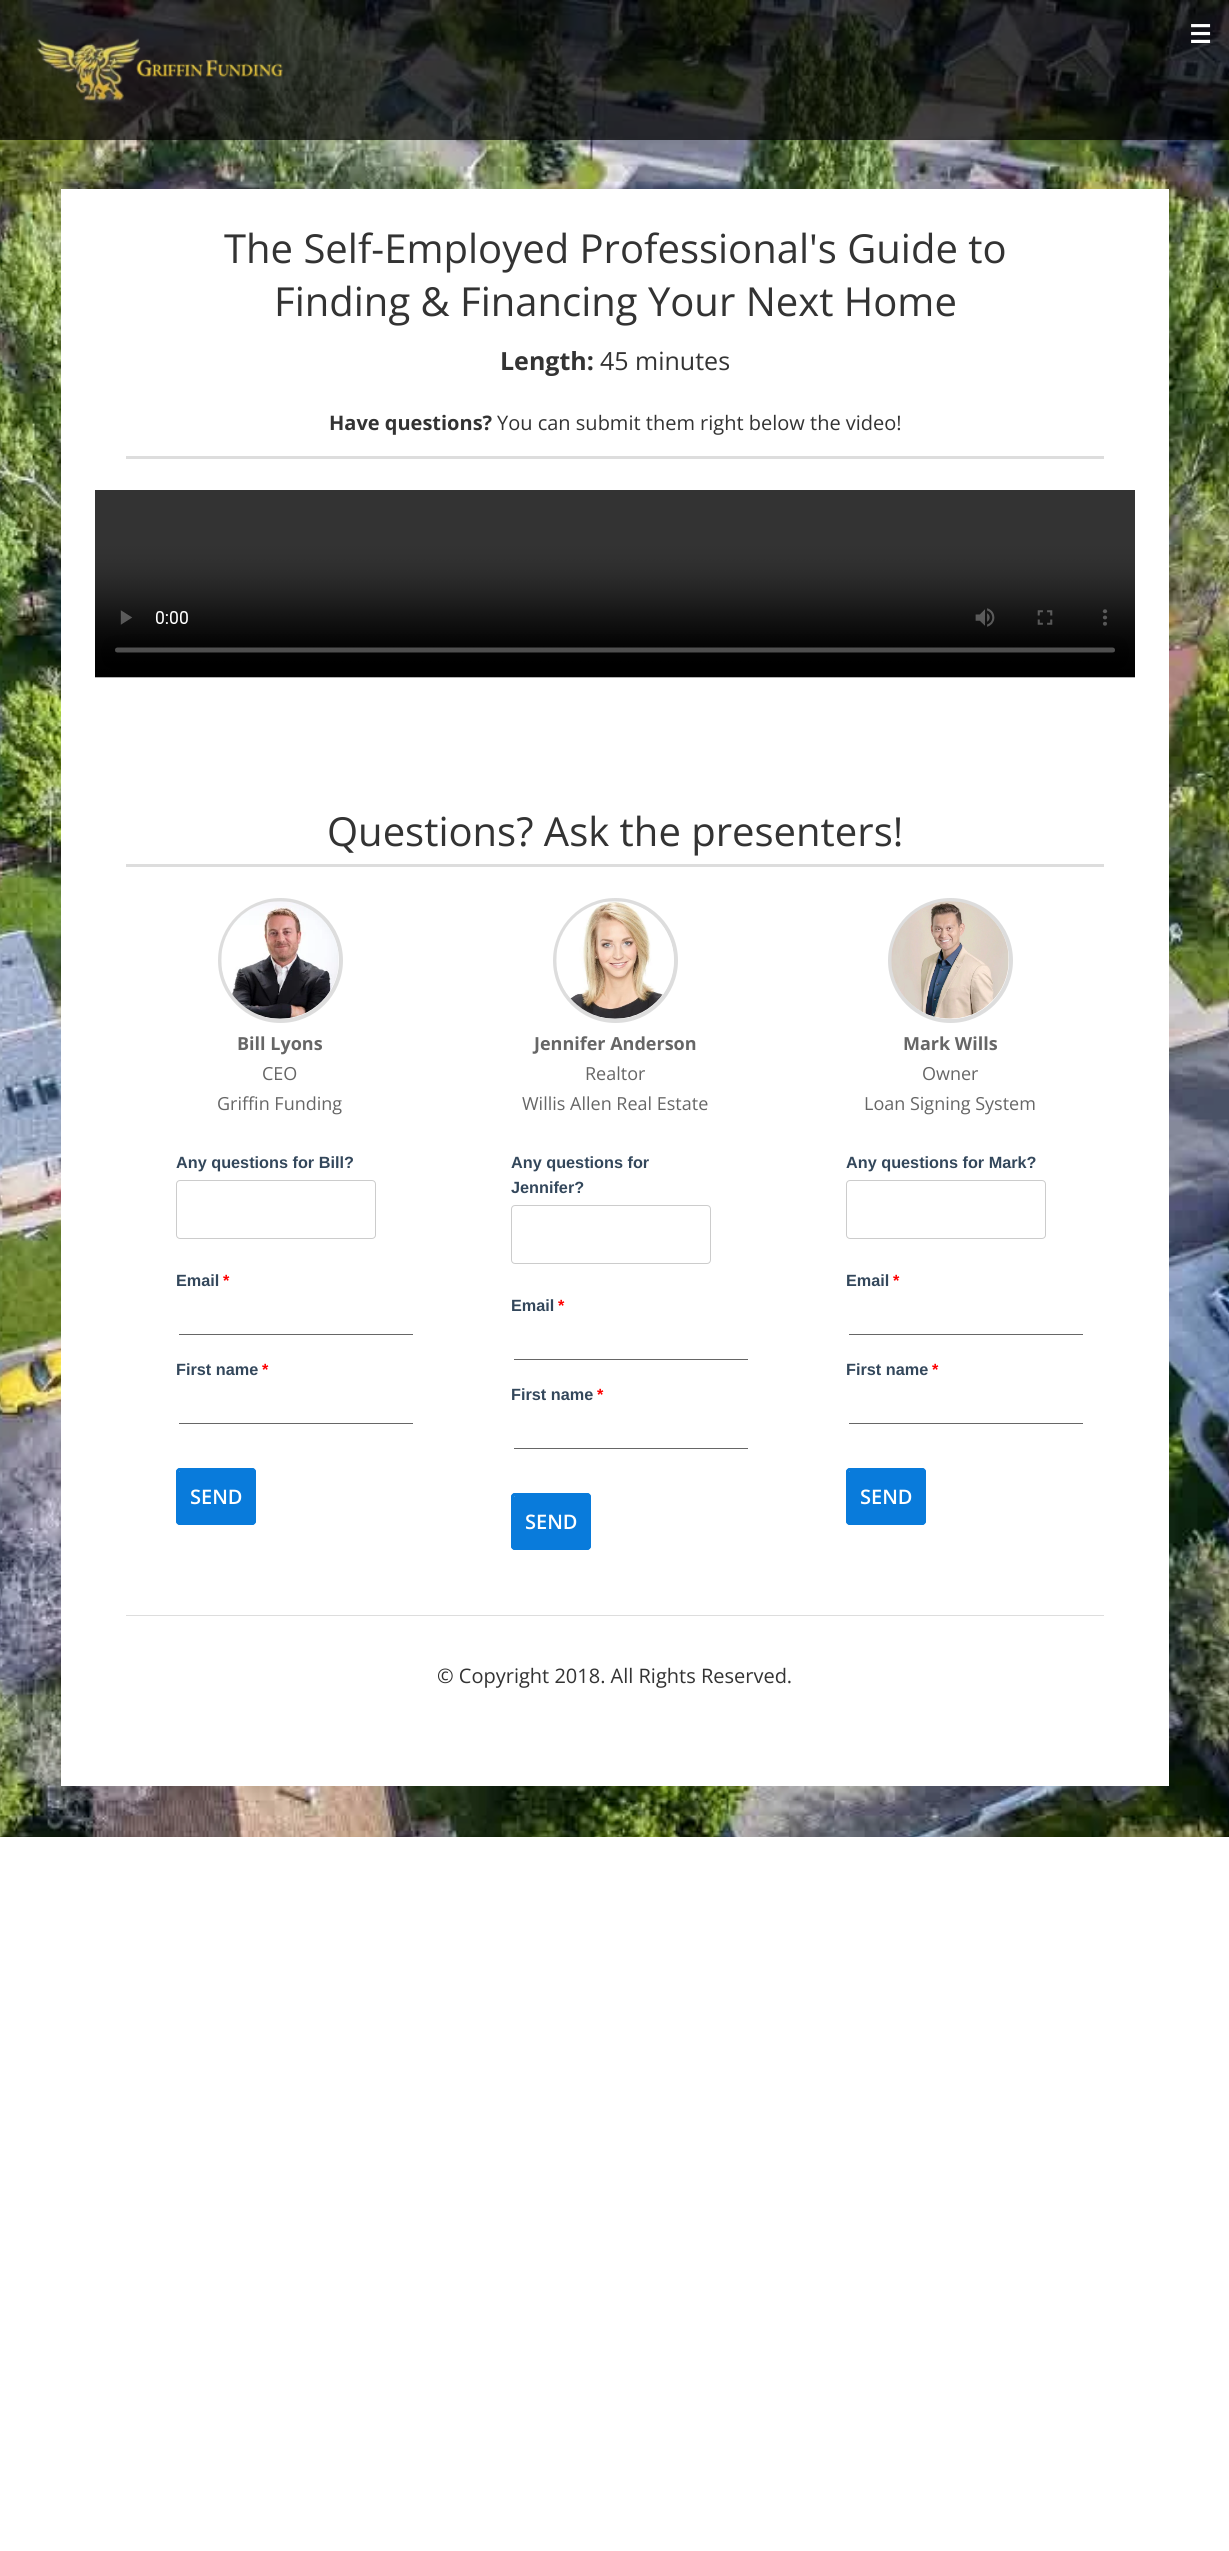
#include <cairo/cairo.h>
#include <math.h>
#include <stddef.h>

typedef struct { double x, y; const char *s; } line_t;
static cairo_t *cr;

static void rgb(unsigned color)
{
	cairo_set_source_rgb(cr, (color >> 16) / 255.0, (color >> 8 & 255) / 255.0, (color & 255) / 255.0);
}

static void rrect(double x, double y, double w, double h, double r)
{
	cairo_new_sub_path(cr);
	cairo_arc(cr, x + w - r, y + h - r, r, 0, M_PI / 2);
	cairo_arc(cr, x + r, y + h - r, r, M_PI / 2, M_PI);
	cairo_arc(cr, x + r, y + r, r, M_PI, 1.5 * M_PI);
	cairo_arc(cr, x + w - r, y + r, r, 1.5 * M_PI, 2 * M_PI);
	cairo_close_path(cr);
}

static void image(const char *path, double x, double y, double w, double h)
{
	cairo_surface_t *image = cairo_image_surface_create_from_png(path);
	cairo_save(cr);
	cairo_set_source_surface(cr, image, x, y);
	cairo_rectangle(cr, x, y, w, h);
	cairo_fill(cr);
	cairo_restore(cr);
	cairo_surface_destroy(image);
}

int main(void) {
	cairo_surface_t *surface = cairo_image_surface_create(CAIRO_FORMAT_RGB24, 1229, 2551);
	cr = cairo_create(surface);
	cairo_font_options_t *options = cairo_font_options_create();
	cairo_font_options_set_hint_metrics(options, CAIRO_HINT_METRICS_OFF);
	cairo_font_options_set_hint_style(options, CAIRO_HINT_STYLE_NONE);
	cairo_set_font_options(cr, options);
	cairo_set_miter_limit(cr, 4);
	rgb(0xffffff);
	cairo_paint(cr);
	image("img/2.png", 0, 0, 1229, 1837);
	cairo_set_source_rgba(cr, 0, 0, 0, 0.7);
	cairo_rectangle(cr, 0, 0, 1229, 140);
	cairo_fill(cr);
	image("img/1.png", 36, 38, 247, 66);
	rgb(0xffffff);
	cairo_rectangle(cr, 61, 189, 1108, 1597);
	cairo_fill(cr);
	rgb(0xdddddd);
	cairo_rectangle(cr, 126, 456, 978, 3);
	cairo_fill(cr);
	image("img/3.png", 95, 490, 1040, 188);
	cairo_rectangle(cr, 126, 864, 978, 3);
	cairo_fill(cr);
	cairo_arc(cr, 280.5, 960.5, 60.5, 0, 2 * M_PI);
	cairo_set_line_width(cr, 4);
	cairo_stroke(cr);
	image("img/4.png", 221, 901, 118, 118);
	rrect(176.5, 1180.5, 199, 58, 3.5);
	rgb(0xcccccc);
	cairo_set_line_width(cr, 1);
	cairo_stroke(cr);
	rgb(0x666666);
	cairo_rectangle(cr, 179, 1334, 234, 1);
	cairo_fill(cr);
	cairo_rectangle(cr, 179, 1423, 234, 1);
	cairo_fill(cr);
	rgb(0x097bdb);
	rrect(176, 1468, 80, 57, 4);
	cairo_fill(cr);
	rgb(0x84bded);
	cairo_set_fill_rule(cr, CAIRO_FILL_RULE_EVEN_ODD);
	cairo_new_path(cr);
	cairo_move_to(cr, 180, 1471);
	cairo_line_to(cr, 253, 1471);
	cairo_curve_to(cr, 254, 1471, 254, 1472, 254, 1473);
	cairo_curve_to(cr, 254, 1466, 250, 1470, 241, 1470);
	cairo_line_to(cr, 192, 1470);
	cairo_curve_to(cr, 189, 1470, 179, 1466, 179, 1472);
	cairo_close_path(cr);
	cairo_move_to(cr, 254, 1522);
	cairo_line_to(cr, 254, 1522);
	cairo_close_path(cr);
	cairo_fill(cr);
	rrect(177.5, 1469.5, 77, 54, 2.5);
	rgb(0x097bdb);
	cairo_set_line_width(cr, 3);
	cairo_stroke(cr);
	cairo_arc(cr, 615.5, 960.5, 60.5, 0, 2 * M_PI);
	rgb(0xdddddd);
	cairo_set_line_width(cr, 4);
	cairo_stroke(cr);
	image("img/5.png", 556, 901, 118, 118);
	rrect(511.5, 1205.5, 199, 58, 3.5);
	rgb(0xcccccc);
	cairo_set_line_width(cr, 1);
	cairo_stroke(cr);
	rgb(0x666666);
	cairo_rectangle(cr, 514, 1359, 234, 1);
	cairo_fill(cr);
	cairo_rectangle(cr, 514, 1448, 234, 1);
	cairo_fill(cr);
	rgb(0x097bdb);
	rrect(511, 1493, 80, 57, 4);
	cairo_fill(cr);
	rgb(0x84bded);
	cairo_new_path(cr);
	cairo_move_to(cr, 515, 1496);
	cairo_line_to(cr, 588, 1496);
	cairo_curve_to(cr, 589, 1496, 589, 1497, 589, 1498);
	cairo_curve_to(cr, 589, 1491, 585, 1495, 576, 1495);
	cairo_line_to(cr, 527, 1495);
	cairo_curve_to(cr, 524, 1495, 514, 1491, 514, 1497);
	cairo_close_path(cr);
	cairo_move_to(cr, 589, 1547);
	cairo_line_to(cr, 589, 1547);
	cairo_close_path(cr);
	cairo_fill(cr);
	rrect(512.5, 1494.5, 77, 54, 2.5);
	rgb(0x097bdb);
	cairo_set_line_width(cr, 3);
	cairo_stroke(cr);
	cairo_arc(cr, 950.5, 960.5, 60.5, 0, 2 * M_PI);
	rgb(0xdddddd);
	cairo_set_line_width(cr, 4);
	cairo_stroke(cr);
	image("img/6.png", 891, 901, 118, 118);
	rrect(846.5, 1180.5, 199, 58, 3.5);
	rgb(0xcccccc);
	cairo_set_line_width(cr, 1);
	cairo_stroke(cr);
	rgb(0x666666);
	cairo_rectangle(cr, 849, 1334, 234, 1);
	cairo_fill(cr);
	cairo_rectangle(cr, 849, 1423, 234, 1);
	cairo_fill(cr);
	rgb(0x097bdb);
	rrect(846, 1468, 80, 57, 4);
	cairo_fill(cr);
	rgb(0x84bded);
	cairo_new_path(cr);
	cairo_move_to(cr, 850, 1471);
	cairo_line_to(cr, 923, 1471);
	cairo_curve_to(cr, 924, 1471, 924, 1472, 924, 1473);
	cairo_curve_to(cr, 924, 1466, 920, 1470, 911, 1470);
	cairo_line_to(cr, 862, 1470);
	cairo_curve_to(cr, 859, 1470, 849, 1466, 849, 1472);
	cairo_close_path(cr);
	cairo_move_to(cr, 924, 1522);
	cairo_line_to(cr, 924, 1522);
	cairo_close_path(cr);
	cairo_fill(cr);
	rrect(847.5, 1469.5, 77, 54, 2.5);
	rgb(0x097bdb);
	cairo_set_line_width(cr, 3);
	cairo_stroke(cr);
	rgb(0xdddddd);
	cairo_rectangle(cr, 126, 1615, 978, 1);
	cairo_fill(cr);
	cairo_select_font_face(cr, "DejaVu Sans", CAIRO_FONT_SLANT_NORMAL, CAIRO_FONT_WEIGHT_BOLD);
	cairo_set_font_size(cr, 25);
	rgb(0xffffff);
	cairo_move_to(cr, 1189, 43);
	cairo_show_text(cr, "☰");
	cairo_select_font_face(cr, "Open Sans", CAIRO_FONT_SLANT_NORMAL, CAIRO_FONT_WEIGHT_NORMAL);
	cairo_set_font_size(cr, 40);
	rgb(0x333333);
	cairo_move_to(cr, 224, 263);
	cairo_show_text(cr, "The Self-Employed Professional's Guide to");
	cairo_move_to(cr, 274, 316);
	cairo_show_text(cr, "Finding & Financing Your Next Home");
	cairo_select_font_face(cr, "Open Sans", CAIRO_FONT_SLANT_NORMAL, CAIRO_FONT_WEIGHT_BOLD);
	cairo_set_font_size(cr, 25);
	cairo_move_to(cr, 500, 370);
	cairo_show_text(cr, "Length:");
	cairo_select_font_face(cr, "Open Sans", CAIRO_FONT_SLANT_NORMAL, CAIRO_FONT_WEIGHT_NORMAL);
	cairo_move_to(cr, 600, 370);
	cairo_show_text(cr, "45 minutes");
	cairo_select_font_face(cr, "Open Sans", CAIRO_FONT_SLANT_NORMAL, CAIRO_FONT_WEIGHT_BOLD);
	cairo_set_font_size(cr, 20);
	cairo_move_to(cr, 329, 430);
	cairo_show_text(cr, "Have questions?");
	cairo_select_font_face(cr, "Open Sans", CAIRO_FONT_SLANT_NORMAL, CAIRO_FONT_WEIGHT_NORMAL);
	cairo_move_to(cr, 497, 430);
	cairo_show_text(cr, "You can submit them right below the video!");
	cairo_set_font_size(cr, 40);
	cairo_move_to(cr, 327, 846);
	cairo_show_text(cr, "Questions? Ask the presenters!");
	cairo_select_font_face(cr, "Open Sans", CAIRO_FONT_SLANT_NORMAL, CAIRO_FONT_WEIGHT_BOLD);
	cairo_set_font_size(cr, 18);
	rgb(0x666666);
	cairo_move_to(cr, 237, 1050);
	cairo_show_text(cr, "Bill Lyons");
	cairo_select_font_face(cr, "Open Sans", CAIRO_FONT_SLANT_NORMAL, CAIRO_FONT_WEIGHT_NORMAL);
	cairo_move_to(cr, 262, 1080);
	cairo_show_text(cr, "CEO");
	cairo_move_to(cr, 217, 1110);
	cairo_show_text(cr, "Griffin Funding");
	cairo_select_font_face(cr, "Liberation Sans", CAIRO_FONT_SLANT_NORMAL, CAIRO_FONT_WEIGHT_BOLD);
	cairo_set_font_size(cr, 16.25);
	rgb(0x33475b);
	cairo_move_to(cr, 176, 1168);
	cairo_show_text(cr, "Any questions for Bill?");
	cairo_move_to(cr, 176, 1286);
	cairo_show_text(cr, "Email");
	rgb(0xff0000);
	cairo_move_to(cr, 223, 1286);
	cairo_show_text(cr, "*");
	rgb(0x33475b);
	cairo_move_to(cr, 176, 1375);
	cairo_show_text(cr, "First name");
	rgb(0xff0000);
	cairo_move_to(cr, 262, 1375);
	cairo_show_text(cr, "*");
	cairo_select_font_face(cr, "Open Sans SemiBold", CAIRO_FONT_SLANT_NORMAL, CAIRO_FONT_WEIGHT_NORMAL);
	cairo_set_font_size(cr, 20);
	rgb(0xffffff);
	cairo_move_to(cr, 190, 1504);
	cairo_show_text(cr, "SEND");
	cairo_select_font_face(cr, "Open Sans", CAIRO_FONT_SLANT_NORMAL, CAIRO_FONT_WEIGHT_BOLD);
	cairo_set_font_size(cr, 18);
	rgb(0x666666);
	cairo_move_to(cr, 534, 1050);
	cairo_show_text(cr, "Jennifer Anderson");
	cairo_select_font_face(cr, "Open Sans", CAIRO_FONT_SLANT_NORMAL, CAIRO_FONT_WEIGHT_NORMAL);
	cairo_move_to(cr, 585, 1080);
	cairo_show_text(cr, "Realtor");
	cairo_move_to(cr, 522, 1110);
	cairo_show_text(cr, "Willis Allen Real Estate");
	cairo_select_font_face(cr, "Liberation Sans", CAIRO_FONT_SLANT_NORMAL, CAIRO_FONT_WEIGHT_BOLD);
	cairo_set_font_size(cr, 16.25);
	rgb(0x33475b);
	{
		static const line_t items[] = {
			{511, 1168, "Any questions for"},
			{511, 1193, "Jennifer?"},
			{511, 1311, "Email"},
		};
		for (size_t i = 0; i < sizeof items / sizeof *items; i++) {
			cairo_move_to(cr, items[i].x, items[i].y);
			cairo_show_text(cr, items[i].s);
		}
	}
	rgb(0xff0000);
	cairo_move_to(cr, 558, 1311);
	cairo_show_text(cr, "*");
	rgb(0x33475b);
	cairo_move_to(cr, 511, 1400);
	cairo_show_text(cr, "First name");
	rgb(0xff0000);
	cairo_move_to(cr, 597, 1400);
	cairo_show_text(cr, "*");
	cairo_select_font_face(cr, "Open Sans SemiBold", CAIRO_FONT_SLANT_NORMAL, CAIRO_FONT_WEIGHT_NORMAL);
	cairo_set_font_size(cr, 20);
	rgb(0xffffff);
	cairo_move_to(cr, 525, 1529);
	cairo_show_text(cr, "SEND");
	cairo_select_font_face(cr, "Open Sans", CAIRO_FONT_SLANT_NORMAL, CAIRO_FONT_WEIGHT_BOLD);
	cairo_set_font_size(cr, 18);
	rgb(0x666666);
	cairo_move_to(cr, 903, 1050);
	cairo_show_text(cr, "Mark Wills");
	cairo_select_font_face(cr, "Open Sans", CAIRO_FONT_SLANT_NORMAL, CAIRO_FONT_WEIGHT_NORMAL);
	cairo_move_to(cr, 922, 1080);
	cairo_show_text(cr, "Owner");
	cairo_move_to(cr, 864, 1110);
	cairo_show_text(cr, "Loan Signing System");
	cairo_select_font_face(cr, "Liberation Sans", CAIRO_FONT_SLANT_NORMAL, CAIRO_FONT_WEIGHT_BOLD);
	cairo_set_font_size(cr, 16.25);
	rgb(0x33475b);
	cairo_move_to(cr, 846, 1168);
	cairo_show_text(cr, "Any questions for Mark?");
	cairo_move_to(cr, 846, 1286);
	cairo_show_text(cr, "Email");
	rgb(0xff0000);
	cairo_move_to(cr, 893, 1286);
	cairo_show_text(cr, "*");
	rgb(0x33475b);
	cairo_move_to(cr, 846, 1375);
	cairo_show_text(cr, "First name");
	rgb(0xff0000);
	cairo_move_to(cr, 932, 1375);
	cairo_show_text(cr, "*");
	cairo_select_font_face(cr, "Open Sans SemiBold", CAIRO_FONT_SLANT_NORMAL, CAIRO_FONT_WEIGHT_NORMAL);
	cairo_set_font_size(cr, 20);
	rgb(0xffffff);
	cairo_move_to(cr, 860, 1504);
	cairo_show_text(cr, "SEND");
	cairo_select_font_face(cr, "Open Sans", CAIRO_FONT_SLANT_NORMAL, CAIRO_FONT_WEIGHT_NORMAL);
	rgb(0x333333);
	cairo_move_to(cr, 437, 1683);
	cairo_show_text(cr, "© Copyright 2018. All Rights Reserved.");
	cairo_surface_write_to_png(surface, "page.png");
	cairo_font_options_destroy(options);
	cairo_destroy(cr);
	cairo_surface_destroy(surface);
	return 0;
}
